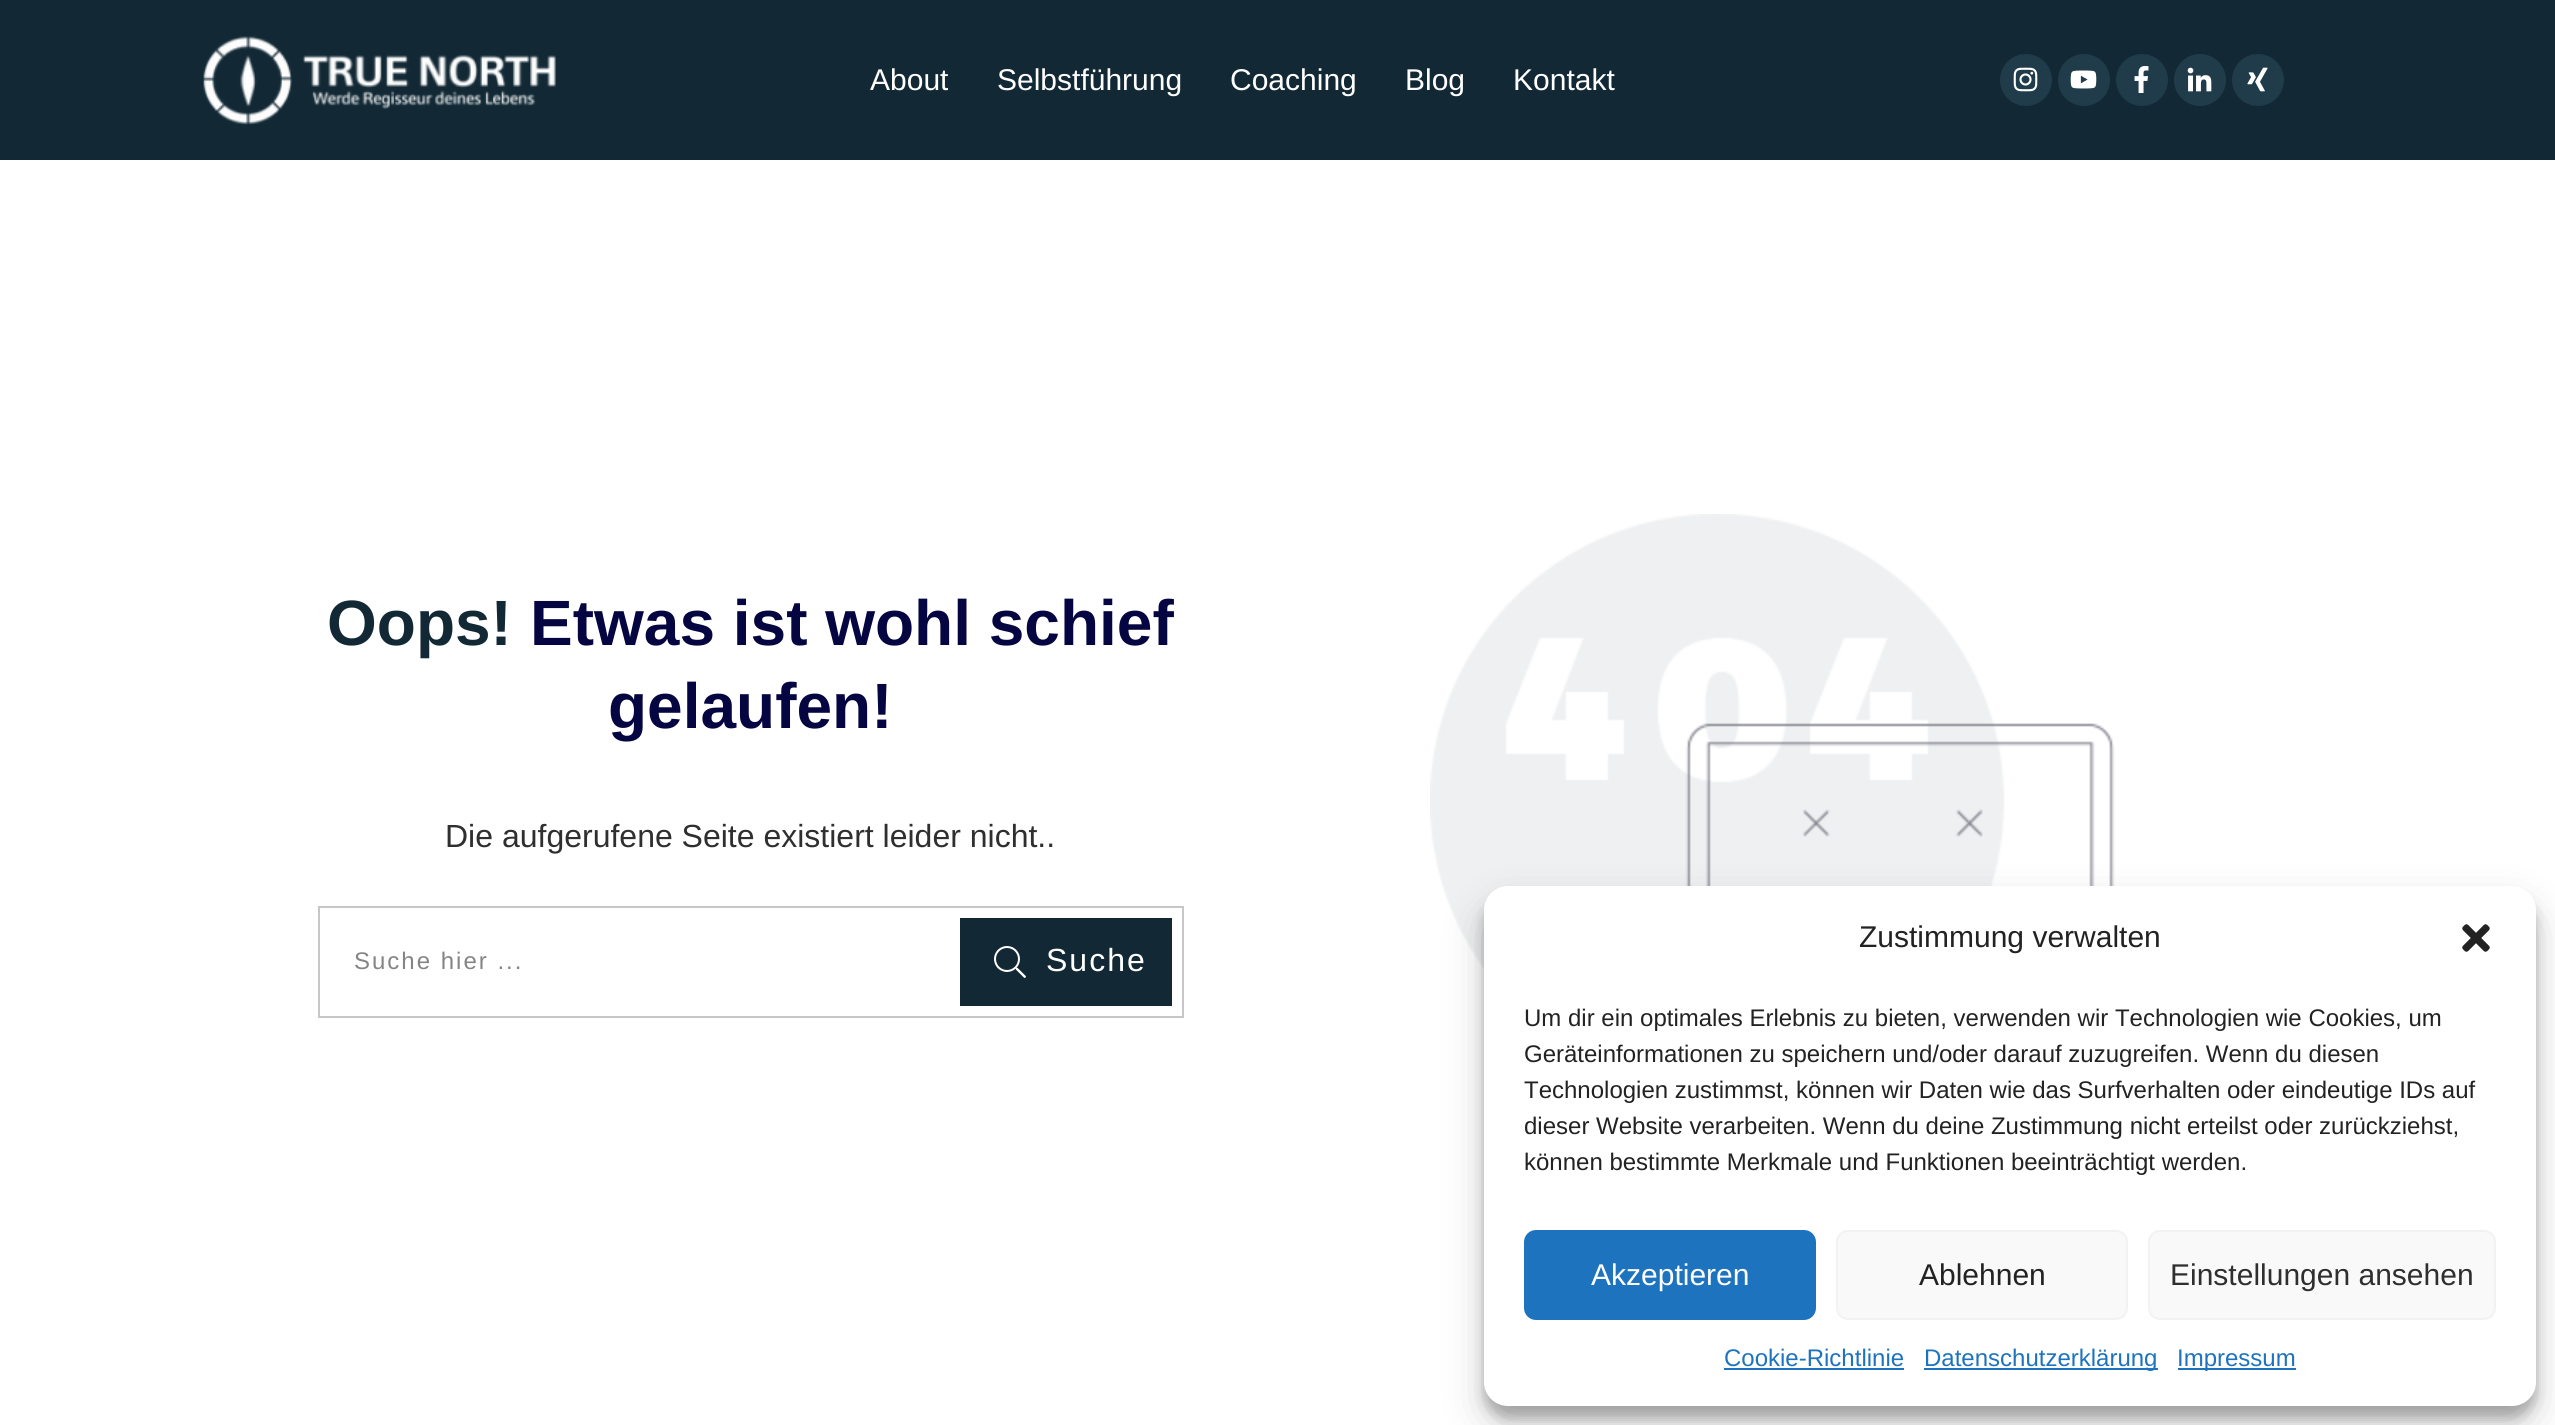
#include <cairo/cairo.h>
#include <math.h>
#include <stddef.h>

typedef struct { double x, y; const char *s; } line_t;
typedef struct { double x, y, w, h; unsigned color; } box_t;
static cairo_t *cr;

static void rgb(unsigned color)
{
	cairo_set_source_rgb(cr, (color >> 16) / 255.0, (color >> 8 & 255) / 255.0, (color & 255) / 255.0);
}

static void tracked(double x, double y, const char *s, double letter, double word)
{
	cairo_move_to(cr, x, y);
	while (*s) {
		char ch[5] = {0};
		int n = 0;
		do ch[n++] = *s++; while ((*s & 0xC0) == 0x80);
		cairo_show_text(cr, ch);
		cairo_rel_move_to(cr, letter + word * (*ch == ' '), 0);
	}
}

static void rrect(double x, double y, double w, double h, double r)
{
	cairo_new_sub_path(cr);
	cairo_arc(cr, x + w - r, y + h - r, r, 0, M_PI / 2);
	cairo_arc(cr, x + r, y + h - r, r, M_PI / 2, M_PI);
	cairo_arc(cr, x + r, y + r, r, M_PI, 1.5 * M_PI);
	cairo_arc(cr, x + w - r, y + r, r, 1.5 * M_PI, 2 * M_PI);
	cairo_close_path(cr);
}

static void soft_shadow(double x, double y, double w, double h, double r, double blur, double alpha)
{
	cairo_push_group_with_content(cr, CAIRO_CONTENT_ALPHA);
	cairo_set_operator(cr, CAIRO_OPERATOR_SOURCE);
	for (int i = 15; i >= -15 && fmin(w, h) + blur * i / 3 > 0; i -= 2) {
		double e = blur * i / 6;
		cairo_set_source_rgba(cr, 0, 0, 0, alpha * erfc((i - 1) / 8.5) / 2);
		rrect(x - e, y - e, w + 2 * e, h + 2 * e, fmax(0, fmin(r + e + blur * .6, fmin(w, h) / 2 + e)));
		cairo_fill(cr);
	}
	cairo_pattern_t *soft = cairo_pop_group(cr);
	cairo_mask(cr, soft);
	cairo_pattern_destroy(soft);
}

static void image(const char *path, double x, double y, double w, double h)
{
	cairo_surface_t *image = cairo_image_surface_create_from_png(path);
	cairo_save(cr);
	cairo_set_source_surface(cr, image, x, y);
	cairo_rectangle(cr, x, y, w, h);
	cairo_fill(cr);
	cairo_restore(cr);
	cairo_surface_destroy(image);
}

int main(void) {
	cairo_surface_t *surface = cairo_image_surface_create(CAIRO_FORMAT_RGB24, 2555, 1425);
	cr = cairo_create(surface);
	cairo_font_options_t *options = cairo_font_options_create();
	cairo_font_options_set_hint_metrics(options, CAIRO_HINT_METRICS_OFF);
	cairo_font_options_set_hint_style(options, CAIRO_HINT_STYLE_NONE);
	cairo_set_font_options(cr, options);
	cairo_set_miter_limit(cr, 4);
	rgb(0xffffff);
	cairo_paint(cr);
	rgb(0x122935);
	cairo_rectangle(cr, 0, 0, 2555, 160);
	cairo_fill(cr);
	image("img/1.png", 203, 36, 353, 89);
	rgb(0x203b49);
	cairo_arc(cr, 2026, 80, 26, 0, 2 * M_PI);
	cairo_fill(cr);
	image("img/2.png", 2013, 67, 25, 25);
	cairo_arc(cr, 2084, 80, 26, 0, 2 * M_PI);
	cairo_fill(cr);
	image("img/3.png", 2070, 70, 27, 19);
	cairo_arc(cr, 2142, 80, 26, 0, 2 * M_PI);
	cairo_fill(cr);
	image("img/4.png", 2134, 66, 15, 27);
	cairo_arc(cr, 2200, 80, 26, 0, 2 * M_PI);
	cairo_fill(cr);
	image("img/5.png", 2187, 67, 25, 25);
	cairo_arc(cr, 2258, 80, 26, 0, 2 * M_PI);
	cairo_fill(cr);
	image("img/6.png", 2247, 67, 21, 25);
	cairo_rectangle(cr, 319, 907, 864, 110);
	rgb(0xc7c7c7);
	cairo_stroke(cr);
	rgb(0x122935);
	cairo_rectangle(cr, 960, 918, 212, 88);
	cairo_fill(cr);
	image("img/7.png", 994, 946, 32, 32);
	image("img/8.png", 1430, 514, 685, 458);
	rgb(0x000000);
	soft_shadow(1484, 898, 1052, 520, 24, 6, 0.23);
	soft_shadow(1484, 906, 1052, 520, 24, 20, 0.19);
	rgb(0xffffff);
	rrect(1484, 886, 1052, 520, 24);
	cairo_fill(cr);
	image("img/9.png", 2462, 924, 28, 28);
	rgb(0x1e73be);
	rrect(1525, 1231, 290, 88, 11);
	cairo_fill_preserve(cr);
	cairo_stroke(cr);
	rgb(0xf9f9f9);
	rrect(1837, 1231, 290, 88, 11);
	cairo_fill_preserve(cr);
	rgb(0xf2f2f2);
	cairo_stroke(cr);
	rgb(0xf9f9f9);
	rrect(2149, 1231, 346, 88, 11);
	cairo_fill_preserve(cr);
	rgb(0xf2f2f2);
	cairo_stroke(cr);
	{
		static const box_t items[] = {
			{1724, 1368, 180, 2, 0x1e73be},
			{1924, 1368, 234, 2, 0x1e73be},
			{2178, 1368, 118, 2, 0x1e73be},
		};
		for (size_t i = 0; i < sizeof items / sizeof *items; i++) {
			rgb(items[i].color);
			cairo_rectangle(cr, items[i].x, items[i].y, items[i].w, items[i].h);
			cairo_fill(cr);
		}
	}
	cairo_save(cr);
	cairo_rectangle(cr, 870, 50, 78, 60);
	cairo_clip(cr);
	cairo_select_font_face(cr, "Liberation Sans", CAIRO_FONT_SLANT_NORMAL, CAIRO_FONT_WEIGHT_NORMAL);
	cairo_set_font_size(cr, 30);
	rgb(0xffffff);
	cairo_move_to(cr, 870, 90);
	cairo_show_text(cr, "About");
	cairo_restore(cr);
	cairo_select_font_face(cr, "Liberation Sans", CAIRO_FONT_SLANT_NORMAL, CAIRO_FONT_WEIGHT_NORMAL);
	cairo_set_font_size(cr, 30);
	rgb(0xffffff);
	{
		static const line_t items[] = {
			{997, 90, "Selbstführung"},
			{1230, 90, "Coaching"},
			{1405, 90, "Blog"},
			{1513, 90, "Kontakt"},
		};
		for (size_t i = 0; i < sizeof items / sizeof *items; i++) {
			cairo_move_to(cr, items[i].x, items[i].y);
			cairo_show_text(cr, items[i].s);
		}
	}
	cairo_select_font_face(cr, "Liberation Sans", CAIRO_FONT_SLANT_NORMAL, CAIRO_FONT_WEIGHT_BOLD);
	cairo_set_font_size(cr, 64);
	rgb(0x122935);
	cairo_move_to(cr, 327, 645);
	cairo_show_text(cr, "Oops!");
	rgb(0x050541);
	cairo_move_to(cr, 530, 645);
	cairo_show_text(cr, "Etwas ist wohl schief");
	cairo_move_to(cr, 608, 728);
	cairo_show_text(cr, "gelaufen!");
	cairo_select_font_face(cr, "Liberation Sans", CAIRO_FONT_SLANT_NORMAL, CAIRO_FONT_WEIGHT_NORMAL);
	cairo_set_font_size(cr, 32);
	rgb(0x2f2f2f);
	cairo_move_to(cr, 445, 847);
	cairo_show_text(cr, "Die aufgerufene Seite existiert leider nicht..");
	cairo_set_font_size(cr, 24);
	rgb(0x858585);
	tracked(354, 969, "Suche hier ...", 2, 0);
	cairo_set_font_size(cr, 32);
	rgb(0xffffff);
	tracked(1046, 971, "Suche", 2, 0);
	cairo_set_font_size(cr, 30);
	rgb(0x222222);
	cairo_move_to(cr, 1859, 947);
	cairo_show_text(cr, "Zustimmung verwalten");
	cairo_set_font_size(cr, 24);
	{
		static const line_t items[] = {
			{1524, 1026, "Um dir ein optimales Erlebnis zu bieten, verwenden wir Technologien wie Cookies, um"},
			{1524, 1062, "Geräteinformationen zu speichern und/oder darauf zuzugreifen. Wenn du diesen"},
			{1524, 1098, "Technologien zustimmst, können wir Daten wie das Surfverhalten oder eindeutige IDs auf"},
			{1524, 1134, "dieser Website verarbeiten. Wenn du deine Zustimmung nicht erteilst oder zurückziehst,"},
			{1524, 1170, "können bestimmte Merkmale und Funktionen beeinträchtigt werden."},
		};
		for (size_t i = 0; i < sizeof items / sizeof *items; i++) {
			cairo_move_to(cr, items[i].x, items[i].y);
			cairo_show_text(cr, items[i].s);
		}
	}
	cairo_set_font_size(cr, 30);
	rgb(0xffffff);
	cairo_move_to(cr, 1591, 1285);
	cairo_show_text(cr, "Akzeptieren");
	rgb(0x222222);
	cairo_move_to(cr, 1919, 1285);
	cairo_show_text(cr, "Ablehnen");
	rgb(0x2f2f2f);
	cairo_move_to(cr, 2170, 1285);
	cairo_show_text(cr, "Einstellungen ansehen");
	cairo_set_font_size(cr, 24);
	rgb(0x1e73be);
	{
		static const line_t items[] = {
			{1724, 1366, "Cookie-Richtlinie"},
			{1924, 1366, "Datenschutzerklärung"},
			{2177, 1366, "Impressum"},
		};
		for (size_t i = 0; i < sizeof items / sizeof *items; i++) {
			cairo_move_to(cr, items[i].x, items[i].y);
			cairo_show_text(cr, items[i].s);
		}
	}
	cairo_surface_write_to_png(surface, "page.png");
	cairo_font_options_destroy(options);
	cairo_destroy(cr);
	cairo_surface_destroy(surface);
	return 0;
}
